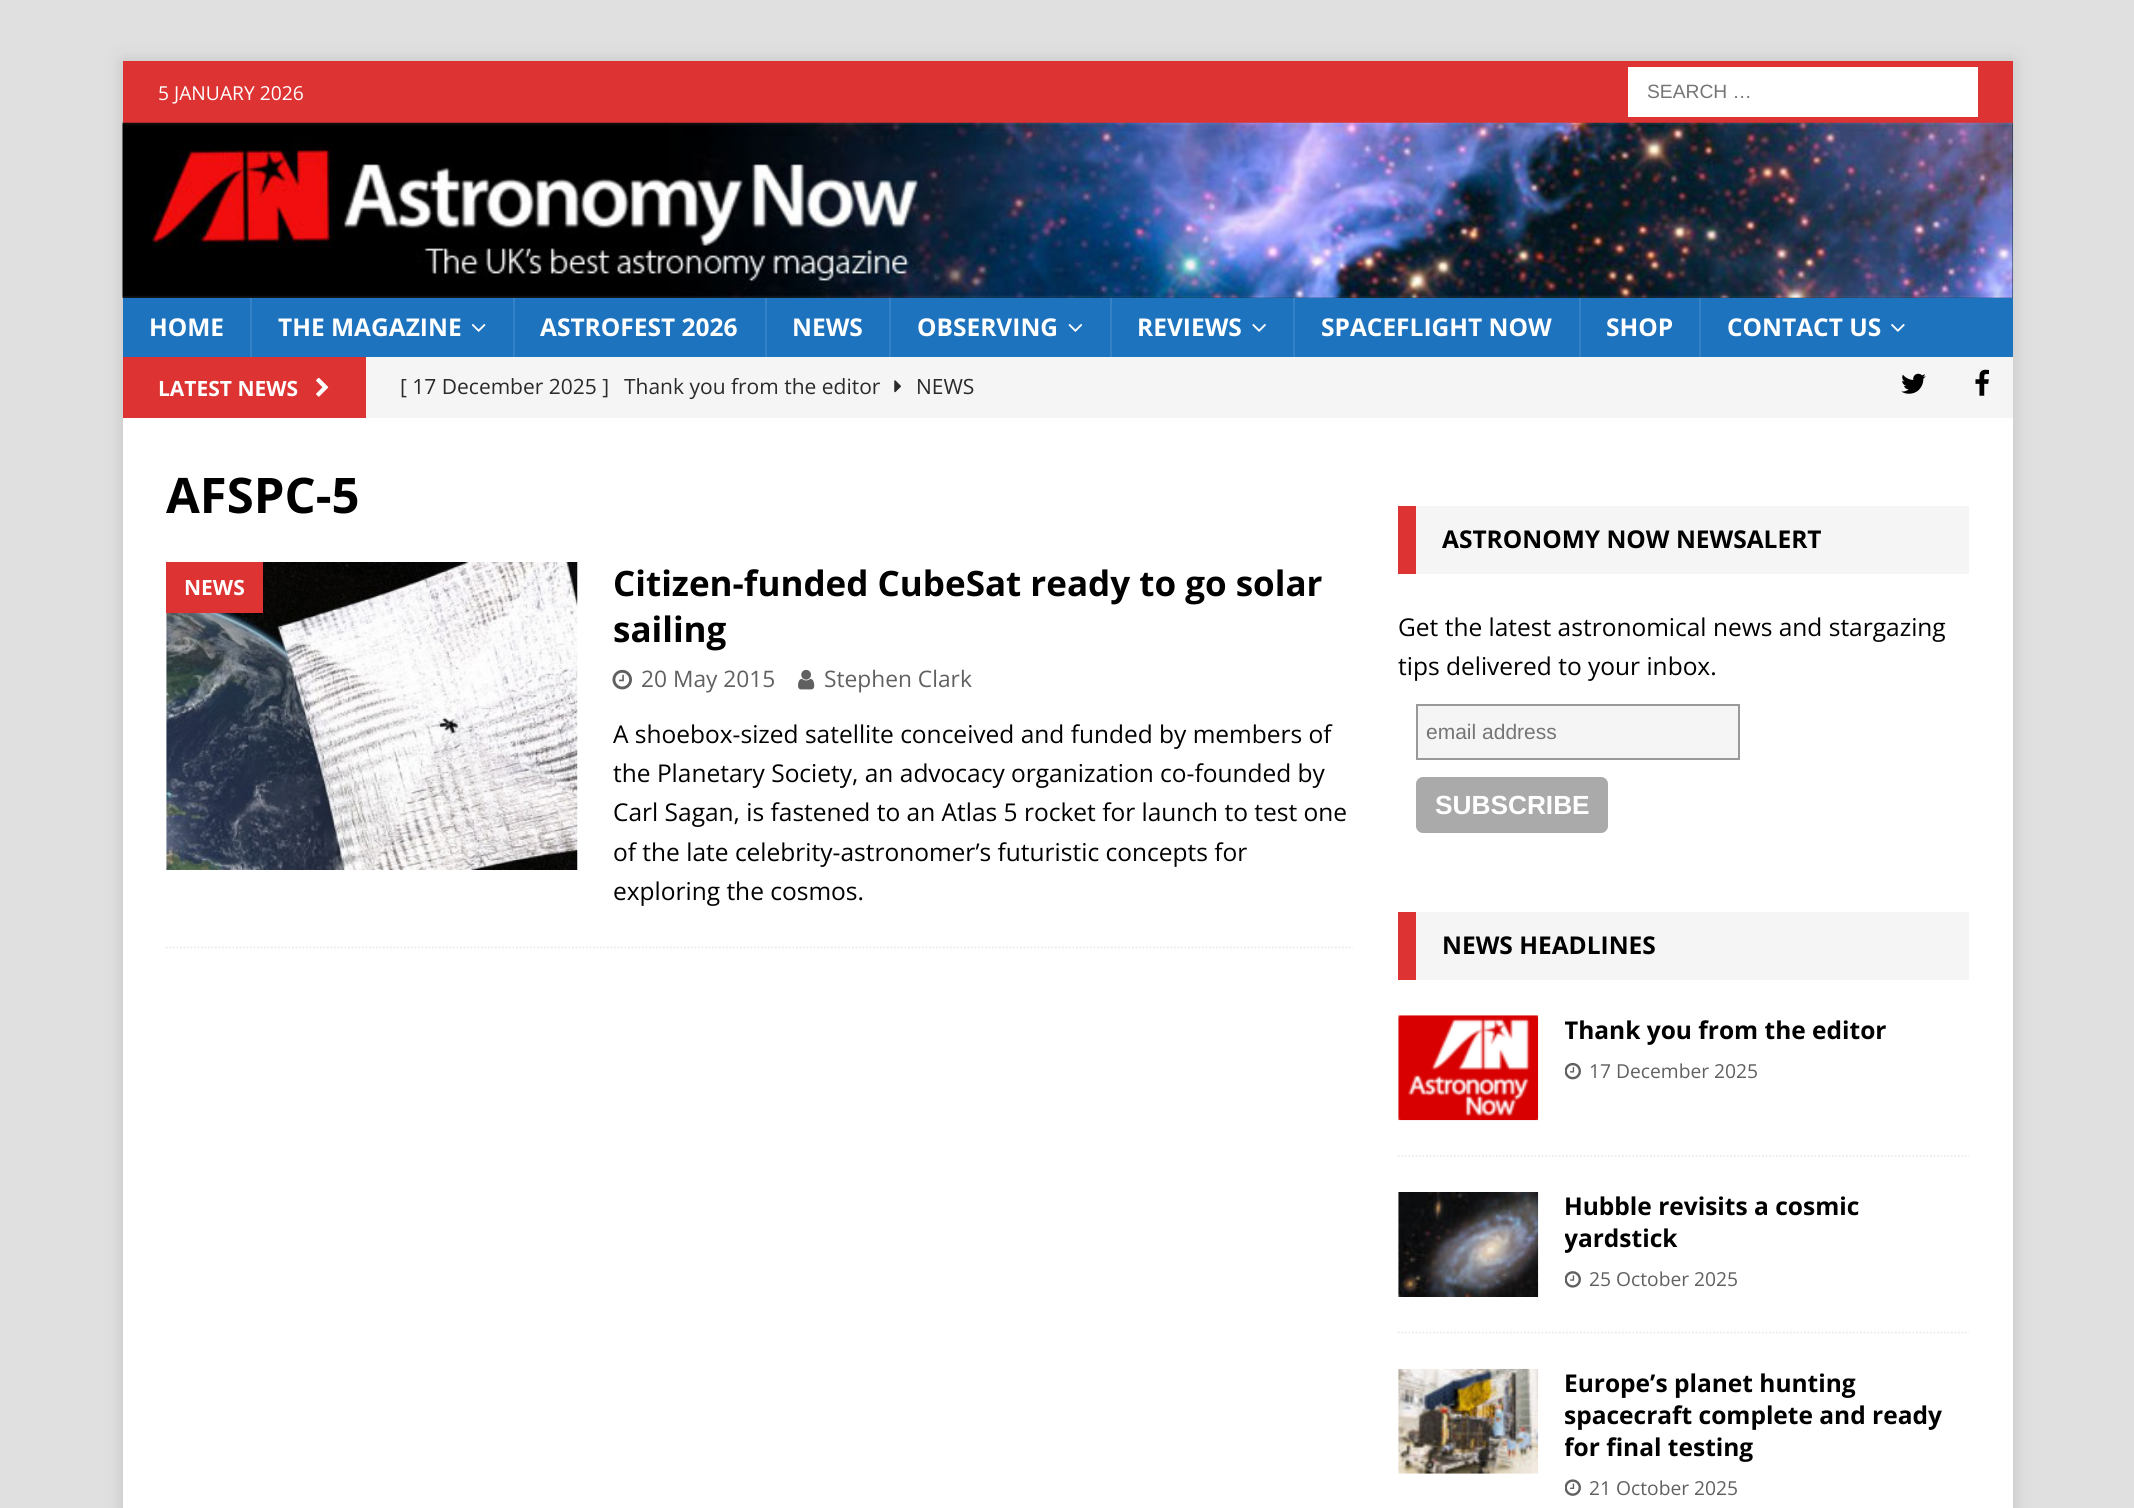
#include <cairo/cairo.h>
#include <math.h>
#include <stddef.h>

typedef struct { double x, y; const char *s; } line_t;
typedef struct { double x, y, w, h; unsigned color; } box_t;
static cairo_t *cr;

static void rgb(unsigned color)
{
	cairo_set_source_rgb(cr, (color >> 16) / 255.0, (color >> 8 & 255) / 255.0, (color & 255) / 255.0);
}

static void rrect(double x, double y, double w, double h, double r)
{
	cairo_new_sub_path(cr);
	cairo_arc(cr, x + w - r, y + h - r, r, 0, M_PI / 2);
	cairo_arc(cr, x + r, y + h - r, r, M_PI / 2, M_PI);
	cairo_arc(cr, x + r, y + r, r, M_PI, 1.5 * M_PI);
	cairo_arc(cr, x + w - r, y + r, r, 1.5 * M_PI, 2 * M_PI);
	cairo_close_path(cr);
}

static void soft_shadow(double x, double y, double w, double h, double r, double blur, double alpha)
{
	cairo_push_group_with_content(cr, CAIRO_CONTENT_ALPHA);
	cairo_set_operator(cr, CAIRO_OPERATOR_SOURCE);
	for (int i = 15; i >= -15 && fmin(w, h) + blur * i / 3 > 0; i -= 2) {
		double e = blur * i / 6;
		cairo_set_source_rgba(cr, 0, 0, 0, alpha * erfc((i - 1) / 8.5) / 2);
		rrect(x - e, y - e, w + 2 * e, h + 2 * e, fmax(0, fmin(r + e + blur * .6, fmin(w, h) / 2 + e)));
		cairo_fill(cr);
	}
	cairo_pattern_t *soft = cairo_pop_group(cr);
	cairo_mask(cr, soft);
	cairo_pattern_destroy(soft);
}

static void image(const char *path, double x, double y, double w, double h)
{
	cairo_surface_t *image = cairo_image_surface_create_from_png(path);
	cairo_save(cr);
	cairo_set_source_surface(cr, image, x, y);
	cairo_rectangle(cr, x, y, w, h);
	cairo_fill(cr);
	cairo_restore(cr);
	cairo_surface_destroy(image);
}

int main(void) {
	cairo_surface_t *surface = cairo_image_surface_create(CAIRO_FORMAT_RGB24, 2134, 1508);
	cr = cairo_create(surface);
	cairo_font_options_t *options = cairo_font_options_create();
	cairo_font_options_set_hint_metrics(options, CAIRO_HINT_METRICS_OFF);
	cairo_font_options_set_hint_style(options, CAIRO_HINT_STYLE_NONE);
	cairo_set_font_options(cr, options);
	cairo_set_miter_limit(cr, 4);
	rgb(0xe0e0e0);
	cairo_paint(cr);
	rgb(0x323232);
	soft_shadow(123, 61, 1890, 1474, 0, 9, 0.17);
	{
		static const box_t items[] = {
			{123, 61, 1890, 62, 0xdd3333},
			{1628, 67, 350, 50, 0xffffff},
			{123, 123, 1890, 175, 0x06273d},
		};
		for (size_t i = 0; i < sizeof items / sizeof *items; i++) {
			rgb(items[i].color);
			cairo_rectangle(cr, items[i].x, items[i].y, items[i].w, items[i].h);
			cairo_fill(cr);
		}
	}
	image("img/1.png", 122, 122, 1891, 176);
	rgb(0x1e73be);
	cairo_rectangle(cr, 123, 298, 1890, 59);
	cairo_fill(cr);
	rgb(0x3581c5);
	cairo_rectangle(cr, 250, 298, 2, 59);
	cairo_fill(cr);
	image("img/2.png", 471, 324, 15, 8);
	{
		static const box_t items[] = {
			{513, 298, 2, 59, 0x3581c5},
			{765, 298, 2, 59, 0x3581c5},
			{889, 298, 2, 59, 0x3581c5},
		};
		for (size_t i = 0; i < sizeof items / sizeof *items; i++) {
			rgb(items[i].color);
			cairo_rectangle(cr, items[i].x, items[i].y, items[i].w, items[i].h);
			cairo_fill(cr);
		}
	}
	image("img/3.png", 1068, 324, 15, 8);
	cairo_rectangle(cr, 1110, 298, 2, 59);
	cairo_fill(cr);
	image("img/4.png", 1252, 324, 14, 8);
	{
		static const box_t items[] = {
			{1293, 298, 2, 59, 0x3581c5},
			{1579, 298, 2, 59, 0x3581c5},
			{1699, 298, 2, 59, 0x3581c5},
		};
		for (size_t i = 0; i < sizeof items / sizeof *items; i++) {
			rgb(items[i].color);
			cairo_rectangle(cr, items[i].x, items[i].y, items[i].w, items[i].h);
			cairo_fill(cr);
		}
	}
	image("img/5.png", 1891, 324, 14, 8);
	rgb(0xf5f5f5);
	cairo_rectangle(cr, 366, 357, 1647, 61);
	cairo_fill(cr);
	rgb(0xdd3333);
	cairo_rectangle(cr, 123, 357, 243, 61);
	cairo_fill(cr);
	image("img/6.png", 316, 377, 13, 20);
	image("img/7.png", 894, 380, 7, 13);
	image("img/8.png", 1901, 373, 25, 21);
	image("img/9.png", 1975, 369, 14, 27);
	rgb(0xffffff);
	cairo_rectangle(cr, 123, 418, 1890, 1090);
	cairo_fill(cr);
	cairo_new_path(cr);
	cairo_move_to(cr, 166, 947.5);
	cairo_line_to(cr, 1353, 947.5);
	rgb(0xebebeb);
	cairo_set_line_width(cr, 1.8);
	cairo_set_dash(cr, (double[]){1.75, 1.75}, 2, 0);
	cairo_stroke(cr);
	image("img/10.png", 166, 562, 412, 308);
	rgb(0xdd3333);
	cairo_rectangle(cr, 166, 562, 97, 51);
	cairo_fill(cr);
	image("img/11.png", 612, 669, 20, 21);
	image("img/12.png", 798, 669, 17, 21);
	rgb(0xf5f5f5);
	cairo_rectangle(cr, 1416, 506, 553, 68);
	cairo_fill(cr);
	rgb(0xdd3333);
	cairo_rectangle(cr, 1398, 506, 18, 68);
	cairo_fill(cr);
	rgb(0xf5f5f5);
	cairo_rectangle(cr, 1417, 705, 322, 54);
	cairo_fill_preserve(cr);
	rgb(0x999999);
	cairo_set_line_width(cr, 2);
	cairo_set_dash(cr, NULL, 0, 0);
	cairo_stroke(cr);
	rgb(0xaaaaaa);
	rrect(1416, 777, 192, 56, 7);
	cairo_fill(cr);
	rgb(0xf5f5f5);
	cairo_rectangle(cr, 1416, 912, 553, 68);
	cairo_fill(cr);
	rgb(0xdd3333);
	cairo_rectangle(cr, 1398, 912, 18, 68);
	cairo_fill(cr);
	cairo_new_path(cr);
	cairo_move_to(cr, 1398, 1156);
	cairo_line_to(cr, 1969, 1156);
	rgb(0xebebeb);
	cairo_set_line_width(cr, 1.8);
	cairo_set_dash(cr, (double[]){1.75, 1.75}, 2, 0);
	cairo_stroke(cr);
	image("img/13.png", 1398, 1015, 141, 106);
	image("img/14.png", 1565, 1062, 16, 18);
	cairo_new_path(cr);
	cairo_move_to(cr, 1398, 1332.5);
	cairo_line_to(cr, 1969, 1332.5);
	cairo_stroke(cr);
	image("img/15.png", 1398, 1192, 141, 105);
	image("img/16.png", 1565, 1271, 16, 17);
	image("img/17.png", 1398, 1368, 141, 106);
	image("img/18.png", 1565, 1479, 16, 17);
	cairo_select_font_face(cr, "Open Sans", CAIRO_FONT_SLANT_NORMAL, CAIRO_FONT_WEIGHT_NORMAL);
	cairo_set_font_size(cr, 19.25);
	rgb(0xffffff);
	cairo_move_to(cr, 158, 100);
	cairo_show_text(cr, "5 JANUARY 2026");
	cairo_select_font_face(cr, "Liberation Sans", CAIRO_FONT_SLANT_NORMAL, CAIRO_FONT_WEIGHT_NORMAL);
	rgb(0x757575);
	cairo_move_to(cr, 1647, 98);
	cairo_show_text(cr, "SEARCH …");
	cairo_select_font_face(cr, "Open Sans", CAIRO_FONT_SLANT_NORMAL, CAIRO_FONT_WEIGHT_BOLD);
	cairo_set_font_size(cr, 24.5);
	rgb(0xffffff);
	{
		static const line_t items[] = {
			{149, 336, "HOME"},
			{278, 336, "THE MAGAZINE"},
			{540, 336, "ASTROFEST 2026"},
			{792, 336, "NEWS"},
			{917, 336, "OBSERVING"},
			{1137, 336, "REVIEWS"},
			{1321, 336, "SPACEFLIGHT NOW"},
			{1606, 336, "SHOP"},
			{1727, 336, "CONTACT US"},
		};
		for (size_t i = 0; i < sizeof items / sizeof *items; i++) {
			cairo_move_to(cr, items[i].x, items[i].y);
			cairo_show_text(cr, items[i].s);
		}
	}
	cairo_set_font_size(cr, 21);
	cairo_move_to(cr, 158, 396);
	cairo_show_text(cr, "LATEST NEWS");
	cairo_select_font_face(cr, "Open Sans", CAIRO_FONT_SLANT_NORMAL, CAIRO_FONT_WEIGHT_NORMAL);
	rgb(0x2a2a2a);
	{
		static const line_t items[] = {
			{400, 394, "[ 17 December 2025 ]"},
			{624, 394, "Thank you from the editor"},
			{916, 394, "NEWS"},
		};
		for (size_t i = 0; i < sizeof items / sizeof *items; i++) {
			cairo_move_to(cr, items[i].x, items[i].y);
			cairo_show_text(cr, items[i].s);
		}
	}
	cairo_select_font_face(cr, "Open Sans", CAIRO_FONT_SLANT_NORMAL, CAIRO_FONT_WEIGHT_BOLD);
	cairo_set_font_size(cr, 49);
	rgb(0x000000);
	cairo_move_to(cr, 166, 513);
	cairo_show_text(cr, "AFSPC-5");
	cairo_set_font_size(cr, 21);
	rgb(0xffffff);
	cairo_move_to(cr, 184, 595);
	cairo_show_text(cr, "NEWS");
	cairo_set_font_size(cr, 35);
	rgb(0x000000);
	cairo_move_to(cr, 613, 596);
	cairo_show_text(cr, "Citizen-funded CubeSat ready to go solar");
	cairo_move_to(cr, 613, 642);
	cairo_show_text(cr, "sailing");
	cairo_select_font_face(cr, "Open Sans", CAIRO_FONT_SLANT_NORMAL, CAIRO_FONT_WEIGHT_NORMAL);
	cairo_set_font_size(cr, 22.75);
	rgb(0x606060);
	cairo_move_to(cr, 641, 687);
	cairo_show_text(cr, "20 May 2015");
	cairo_move_to(cr, 824, 687);
	cairo_show_text(cr, "Stephen Clark");
	cairo_set_font_size(cr, 24.5);
	rgb(0x000000);
	{
		static const line_t items[] = {
			{613, 743, "A shoebox-sized satellite conceived and funded by members of"},
			{613, 782, "the Planetary Society, an advocacy organization co-founded by"},
			{613, 821, "Carl Sagan, is fastened to an Atlas 5 rocket for launch to test one"},
			{613, 861, "of the late celebrity-astronomer’s futuristic concepts for"},
			{613, 900, "exploring the cosmos."},
		};
		for (size_t i = 0; i < sizeof items / sizeof *items; i++) {
			cairo_move_to(cr, items[i].x, items[i].y);
			cairo_show_text(cr, items[i].s);
		}
	}
	cairo_select_font_face(cr, "Open Sans", CAIRO_FONT_SLANT_NORMAL, CAIRO_FONT_WEIGHT_BOLD);
	cairo_move_to(cr, 1442, 548);
	cairo_show_text(cr, "ASTRONOMY NOW NEWSALERT");
	cairo_select_font_face(cr, "Open Sans", CAIRO_FONT_SLANT_NORMAL, CAIRO_FONT_WEIGHT_NORMAL);
	cairo_move_to(cr, 1398, 636);
	cairo_show_text(cr, "Get the latest astronomical news and stargazing");
	cairo_move_to(cr, 1398, 675);
	cairo_show_text(cr, "tips delivered to your inbox.");
	cairo_select_font_face(cr, "Liberation Sans", CAIRO_FONT_SLANT_NORMAL, CAIRO_FONT_WEIGHT_NORMAL);
	cairo_set_font_size(cr, 21);
	rgb(0x757575);
	cairo_move_to(cr, 1426, 739);
	cairo_show_text(cr, "email address");
	cairo_select_font_face(cr, "Liberation Sans", CAIRO_FONT_SLANT_NORMAL, CAIRO_FONT_WEIGHT_BOLD);
	cairo_set_font_size(cr, 26.25);
	rgb(0xffffff);
	cairo_move_to(cr, 1435, 814);
	cairo_show_text(cr, "SUBSCRIBE");
	cairo_select_font_face(cr, "Open Sans", CAIRO_FONT_SLANT_NORMAL, CAIRO_FONT_WEIGHT_BOLD);
	cairo_set_font_size(cr, 24.5);
	rgb(0x000000);
	cairo_move_to(cr, 1442, 954);
	cairo_show_text(cr, "NEWS HEADLINES");
	cairo_save(cr);
	cairo_rectangle(cr, 1565, 1015, 404, 70);
	cairo_clip(cr);
	cairo_move_to(cr, 1564, 1039);
	cairo_show_text(cr, "Thank you from the editor");
	cairo_restore(cr);
	cairo_select_font_face(cr, "Open Sans", CAIRO_FONT_SLANT_NORMAL, CAIRO_FONT_WEIGHT_NORMAL);
	cairo_set_font_size(cr, 19.25);
	rgb(0x606060);
	cairo_move_to(cr, 1589, 1078);
	cairo_show_text(cr, "17 December 2025");
	cairo_select_font_face(cr, "Open Sans", CAIRO_FONT_SLANT_NORMAL, CAIRO_FONT_WEIGHT_BOLD);
	cairo_set_font_size(cr, 24.5);
	rgb(0x000000);
	cairo_move_to(cr, 1564, 1215);
	cairo_show_text(cr, "Hubble revisits a cosmic");
	cairo_save(cr);
	cairo_rectangle(cr, 1565, 1192, 404, 103);
	cairo_clip(cr);
	cairo_move_to(cr, 1564, 1247);
	cairo_show_text(cr, "yardstick");
	cairo_restore(cr);
	cairo_select_font_face(cr, "Open Sans", CAIRO_FONT_SLANT_NORMAL, CAIRO_FONT_WEIGHT_NORMAL);
	cairo_set_font_size(cr, 19.25);
	rgb(0x606060);
	cairo_move_to(cr, 1589, 1286);
	cairo_show_text(cr, "25 October 2025");
	cairo_select_font_face(cr, "Open Sans", CAIRO_FONT_SLANT_NORMAL, CAIRO_FONT_WEIGHT_BOLD);
	cairo_set_font_size(cr, 24.5);
	rgb(0x000000);
	cairo_move_to(cr, 1564, 1392);
	cairo_show_text(cr, "Europe’s planet hunting");
	cairo_move_to(cr, 1564, 1424);
	cairo_show_text(cr, "spacecraft complete and ready");
	cairo_save(cr);
	cairo_rectangle(cr, 1565, 1369, 404, 134);
	cairo_clip(cr);
	cairo_move_to(cr, 1564, 1456);
	cairo_show_text(cr, "for final testing");
	cairo_restore(cr);
	cairo_select_font_face(cr, "Open Sans", CAIRO_FONT_SLANT_NORMAL, CAIRO_FONT_WEIGHT_NORMAL);
	cairo_set_font_size(cr, 19.25);
	rgb(0x606060);
	cairo_move_to(cr, 1589, 1495);
	cairo_show_text(cr, "21 October 2025");
	cairo_surface_write_to_png(surface, "page.png");
	cairo_font_options_destroy(options);
	cairo_destroy(cr);
	cairo_surface_destroy(surface);
	return 0;
}
